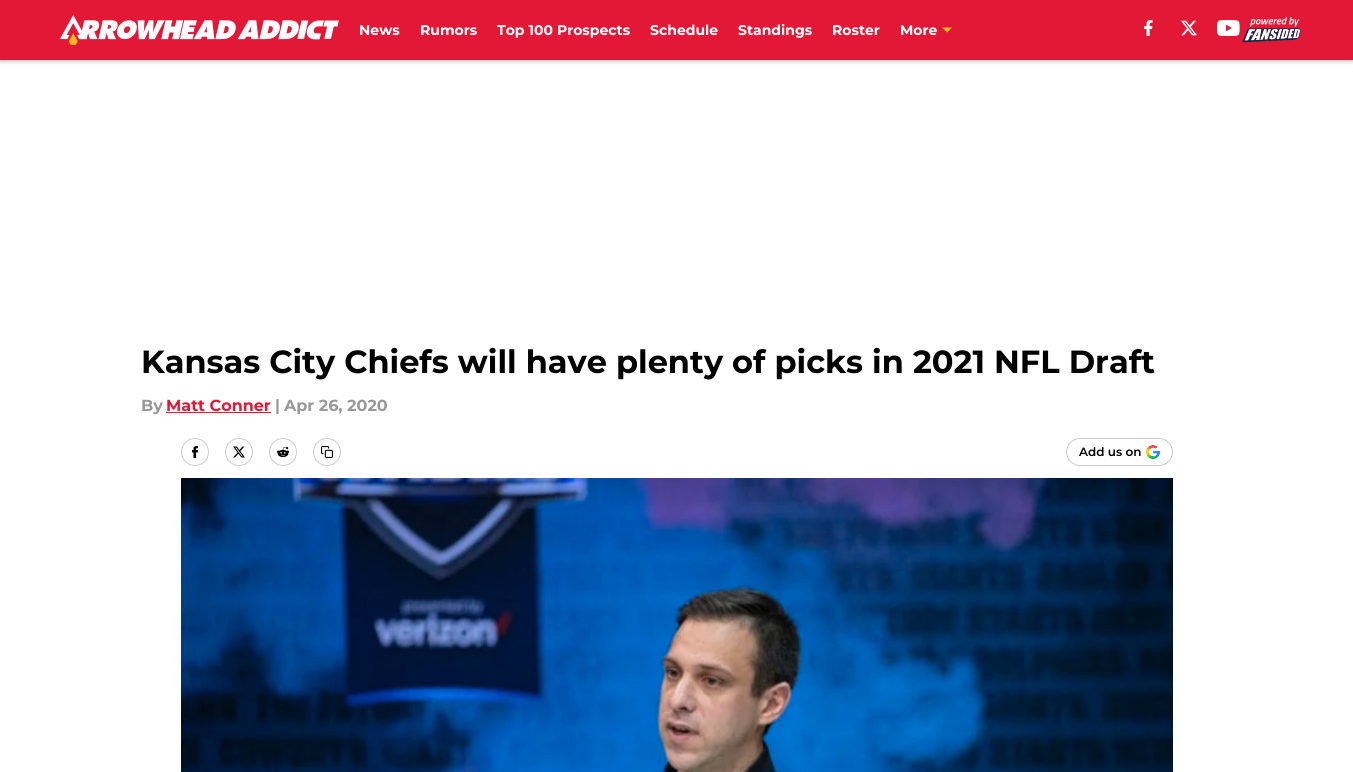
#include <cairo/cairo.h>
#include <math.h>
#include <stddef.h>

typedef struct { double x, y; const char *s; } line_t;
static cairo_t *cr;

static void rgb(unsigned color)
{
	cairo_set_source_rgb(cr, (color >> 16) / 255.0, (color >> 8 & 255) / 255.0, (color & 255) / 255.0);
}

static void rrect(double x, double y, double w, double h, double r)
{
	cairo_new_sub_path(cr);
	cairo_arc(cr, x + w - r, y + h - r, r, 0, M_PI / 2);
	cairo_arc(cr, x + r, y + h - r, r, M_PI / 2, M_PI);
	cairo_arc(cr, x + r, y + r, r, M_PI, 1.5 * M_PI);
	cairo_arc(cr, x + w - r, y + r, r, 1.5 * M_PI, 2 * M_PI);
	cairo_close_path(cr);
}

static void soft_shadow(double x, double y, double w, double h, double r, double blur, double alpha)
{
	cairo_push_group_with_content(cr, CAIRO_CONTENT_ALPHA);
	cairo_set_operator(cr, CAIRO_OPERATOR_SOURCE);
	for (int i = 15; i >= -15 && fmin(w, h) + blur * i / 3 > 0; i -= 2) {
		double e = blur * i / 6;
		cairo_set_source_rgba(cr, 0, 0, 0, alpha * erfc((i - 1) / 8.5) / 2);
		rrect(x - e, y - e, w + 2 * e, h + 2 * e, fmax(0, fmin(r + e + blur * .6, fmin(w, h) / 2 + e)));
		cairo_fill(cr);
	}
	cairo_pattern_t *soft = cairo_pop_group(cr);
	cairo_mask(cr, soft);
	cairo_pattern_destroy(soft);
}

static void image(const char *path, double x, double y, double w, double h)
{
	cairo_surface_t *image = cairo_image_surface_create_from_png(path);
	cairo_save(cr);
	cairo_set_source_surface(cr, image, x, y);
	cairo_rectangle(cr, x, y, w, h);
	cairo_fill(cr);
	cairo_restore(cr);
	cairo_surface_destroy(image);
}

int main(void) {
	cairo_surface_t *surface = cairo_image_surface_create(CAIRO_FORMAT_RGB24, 1353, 772);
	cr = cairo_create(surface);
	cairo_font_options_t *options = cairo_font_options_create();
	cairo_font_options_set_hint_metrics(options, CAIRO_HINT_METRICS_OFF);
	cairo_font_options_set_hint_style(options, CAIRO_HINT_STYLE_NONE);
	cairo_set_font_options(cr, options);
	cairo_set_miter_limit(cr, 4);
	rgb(0xffffff);
	cairo_paint(cr);
	rgb(0x000000);
	soft_shadow(0, 2, 1353, 60, 0, 2, 0.2);
	rgb(0xe31837);
	cairo_rectangle(cr, 0, 0, 1353, 60);
	cairo_fill(cr);
	image("img/1.png", 60, 15, 279, 30);
	rgb(0xffb81c);
	cairo_set_fill_rule(cr, CAIRO_FILL_RULE_EVEN_ODD);
	cairo_new_path(cr);
	cairo_move_to(cr, 942, 27.5);
	cairo_line_to(cr, 947, 32.5);
	cairo_line_to(cr, 952, 27.5);
	cairo_close_path(cr);
	cairo_fill(cr);
	image("img/2.png", 1144, 20, 9, 16);
	image("img/3.png", 1181, 20, 16, 16);
	image("img/4.png", 1217, 20, 23, 16);
	image("img/5.png", 1242, 17, 59, 26);
	rgb(0xe31837);
	cairo_rectangle(cr, 166, 412, 105, 1);
	cairo_fill(cr);
	cairo_arc(cr, 195, 452, 13.5, 0, 2 * M_PI);
	rgb(0xcccccc);
	cairo_set_line_width(cr, 1);
	cairo_stroke(cr);
	image("img/6.png", 191, 446, 8, 12);
	cairo_arc(cr, 239, 452, 13.5, 0, 2 * M_PI);
	cairo_stroke(cr);
	image("img/7.png", 233, 446, 12, 12);
	cairo_arc(cr, 283, 452, 13.5, 0, 2 * M_PI);
	cairo_stroke(cr);
	image("img/8.png", 277, 446, 12, 12);
	cairo_arc(cr, 327, 452, 13.5, 0, 2 * M_PI);
	cairo_stroke(cr);
	image("img/9.png", 321, 446, 12, 12);
	rrect(1066.5, 438.5, 106, 27, 13.5);
	cairo_stroke(cr);
	image("img/10.png", 1146, 445, 14, 14);
	image("img/11.png", 181, 478, 992, 294);
	cairo_select_font_face(cr, "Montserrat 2 Thin", CAIRO_FONT_SLANT_NORMAL, CAIRO_FONT_WEIGHT_NORMAL);
	cairo_set_font_size(cr, 14);
	rgb(0xffffff);
	{
		static const line_t items[] = {
			{359, 35, "News"},
			{420, 35, "Rumors"},
			{497, 35, "Top 100 Prospects"},
			{650, 35, "Schedule"},
			{738, 35, "Standings"},
			{832, 35, "Roster"},
			{900, 35, "More"},
		};
		for (size_t i = 0; i < sizeof items / sizeof *items; i++) {
			cairo_move_to(cr, items[i].x, items[i].y);
			cairo_show_text(cr, items[i].s);
		}
	}
	cairo_set_font_size(cr, 32);
	rgb(0x000000);
	cairo_move_to(cr, 141, 373);
	cairo_show_text(cr, "Kansas City Chiefs will have plenty of picks in 2021 NFL Draft");
	cairo_set_font_size(cr, 16);
	rgb(0x999999);
	cairo_move_to(cr, 141, 411);
	cairo_show_text(cr, "By");
	rgb(0xe31837);
	cairo_move_to(cr, 166, 411);
	cairo_show_text(cr, "Matt Conner");
	rgb(0x999999);
	cairo_move_to(cr, 275, 411);
	cairo_show_text(cr, "|");
	cairo_move_to(cr, 284, 411);
	cairo_show_text(cr, "Apr 26, 2020");
	cairo_select_font_face(cr, "Montserrat Thin", CAIRO_FONT_SLANT_NORMAL, CAIRO_FONT_WEIGHT_NORMAL);
	cairo_set_font_size(cr, 12);
	rgb(0x000000);
	cairo_move_to(cr, 1079, 456);
	cairo_show_text(cr, "Add us on");
	cairo_surface_write_to_png(surface, "page.png");
	cairo_font_options_destroy(options);
	cairo_destroy(cr);
	cairo_surface_destroy(surface);
	return 0;
}
